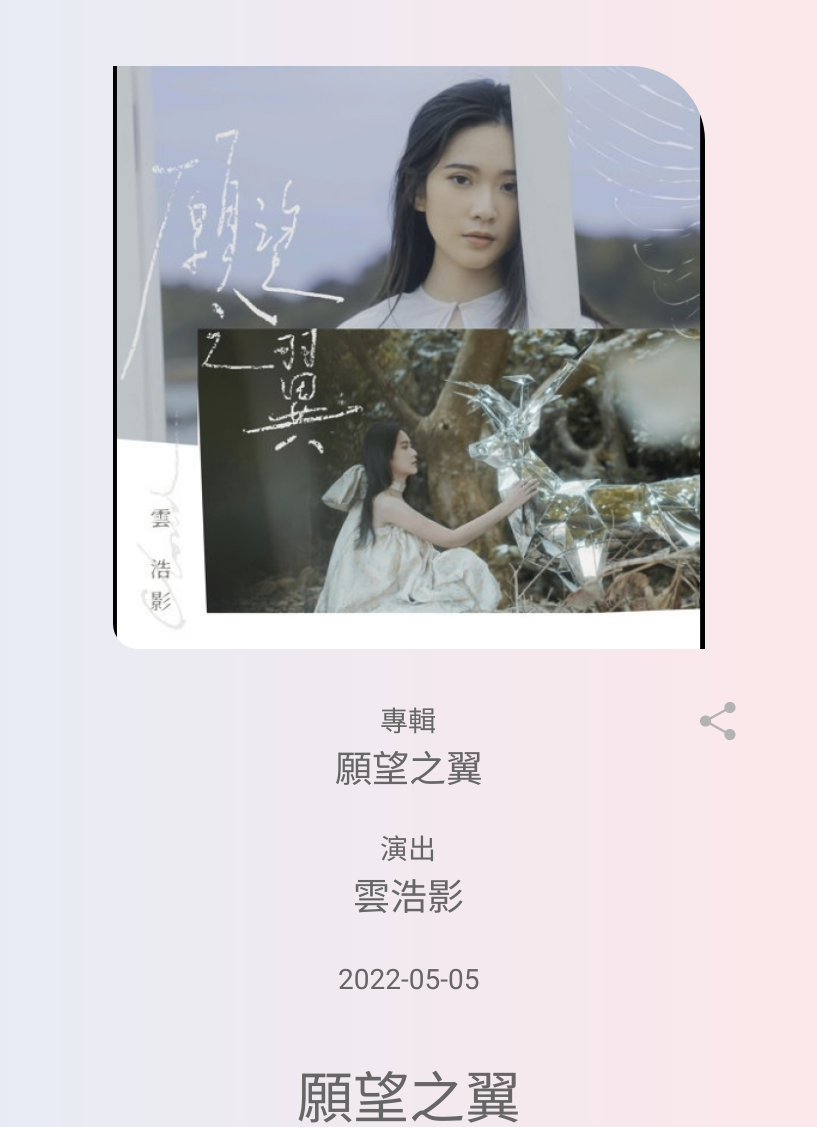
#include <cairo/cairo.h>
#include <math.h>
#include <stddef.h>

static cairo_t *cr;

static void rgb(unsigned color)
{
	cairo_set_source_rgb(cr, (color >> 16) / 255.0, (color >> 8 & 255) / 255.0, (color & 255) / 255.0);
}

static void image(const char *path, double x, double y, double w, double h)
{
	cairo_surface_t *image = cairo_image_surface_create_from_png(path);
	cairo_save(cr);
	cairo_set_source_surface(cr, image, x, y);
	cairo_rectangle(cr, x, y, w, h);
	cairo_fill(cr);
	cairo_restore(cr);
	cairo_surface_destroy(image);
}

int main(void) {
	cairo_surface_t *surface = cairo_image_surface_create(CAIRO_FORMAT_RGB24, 817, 1127);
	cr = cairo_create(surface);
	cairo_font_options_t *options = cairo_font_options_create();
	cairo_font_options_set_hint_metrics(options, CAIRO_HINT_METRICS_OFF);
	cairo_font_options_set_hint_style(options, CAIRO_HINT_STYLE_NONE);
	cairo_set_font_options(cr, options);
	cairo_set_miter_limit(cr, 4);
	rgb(0xffffff);
	cairo_paint(cr);
	image("img/1.png", 0, 0, 817, 1127);
	image("img/2.png", 113, 66, 592, 583);
	image("img/3.png", 700, 702, 36, 39);
	cairo_select_font_face(cr, "Noto Sans TC", CAIRO_FONT_SLANT_NORMAL, CAIRO_FONT_WEIGHT_NORMAL);
	cairo_set_font_size(cr, 28);
	rgb(0x666666);
	cairo_move_to(cr, 380, 731);
	cairo_show_text(cr, "專輯");
	cairo_set_font_size(cr, 37);
	cairo_move_to(cr, 335, 782);
	cairo_show_text(cr, "願望之翼");
	cairo_set_font_size(cr, 28);
	cairo_move_to(cr, 380, 859);
	cairo_show_text(cr, "演出");
	cairo_set_font_size(cr, 37);
	cairo_move_to(cr, 353, 910);
	cairo_show_text(cr, "雲浩影");
	cairo_select_font_face(cr, "Roboto", CAIRO_FONT_SLANT_NORMAL, CAIRO_FONT_WEIGHT_NORMAL);
	cairo_set_font_size(cr, 28);
	cairo_move_to(cr, 338, 989);
	cairo_show_text(cr, "2022-05-05");
	cairo_select_font_face(cr, "Noto Sans TC", CAIRO_FONT_SLANT_NORMAL, CAIRO_FONT_WEIGHT_NORMAL);
	cairo_set_font_size(cr, 56);
	cairo_move_to(cr, 297, 1118);
	cairo_show_text(cr, "願望之翼");
	cairo_surface_write_to_png(surface, "page.png");
	cairo_font_options_destroy(options);
	cairo_destroy(cr);
	cairo_surface_destroy(surface);
	return 0;
}
